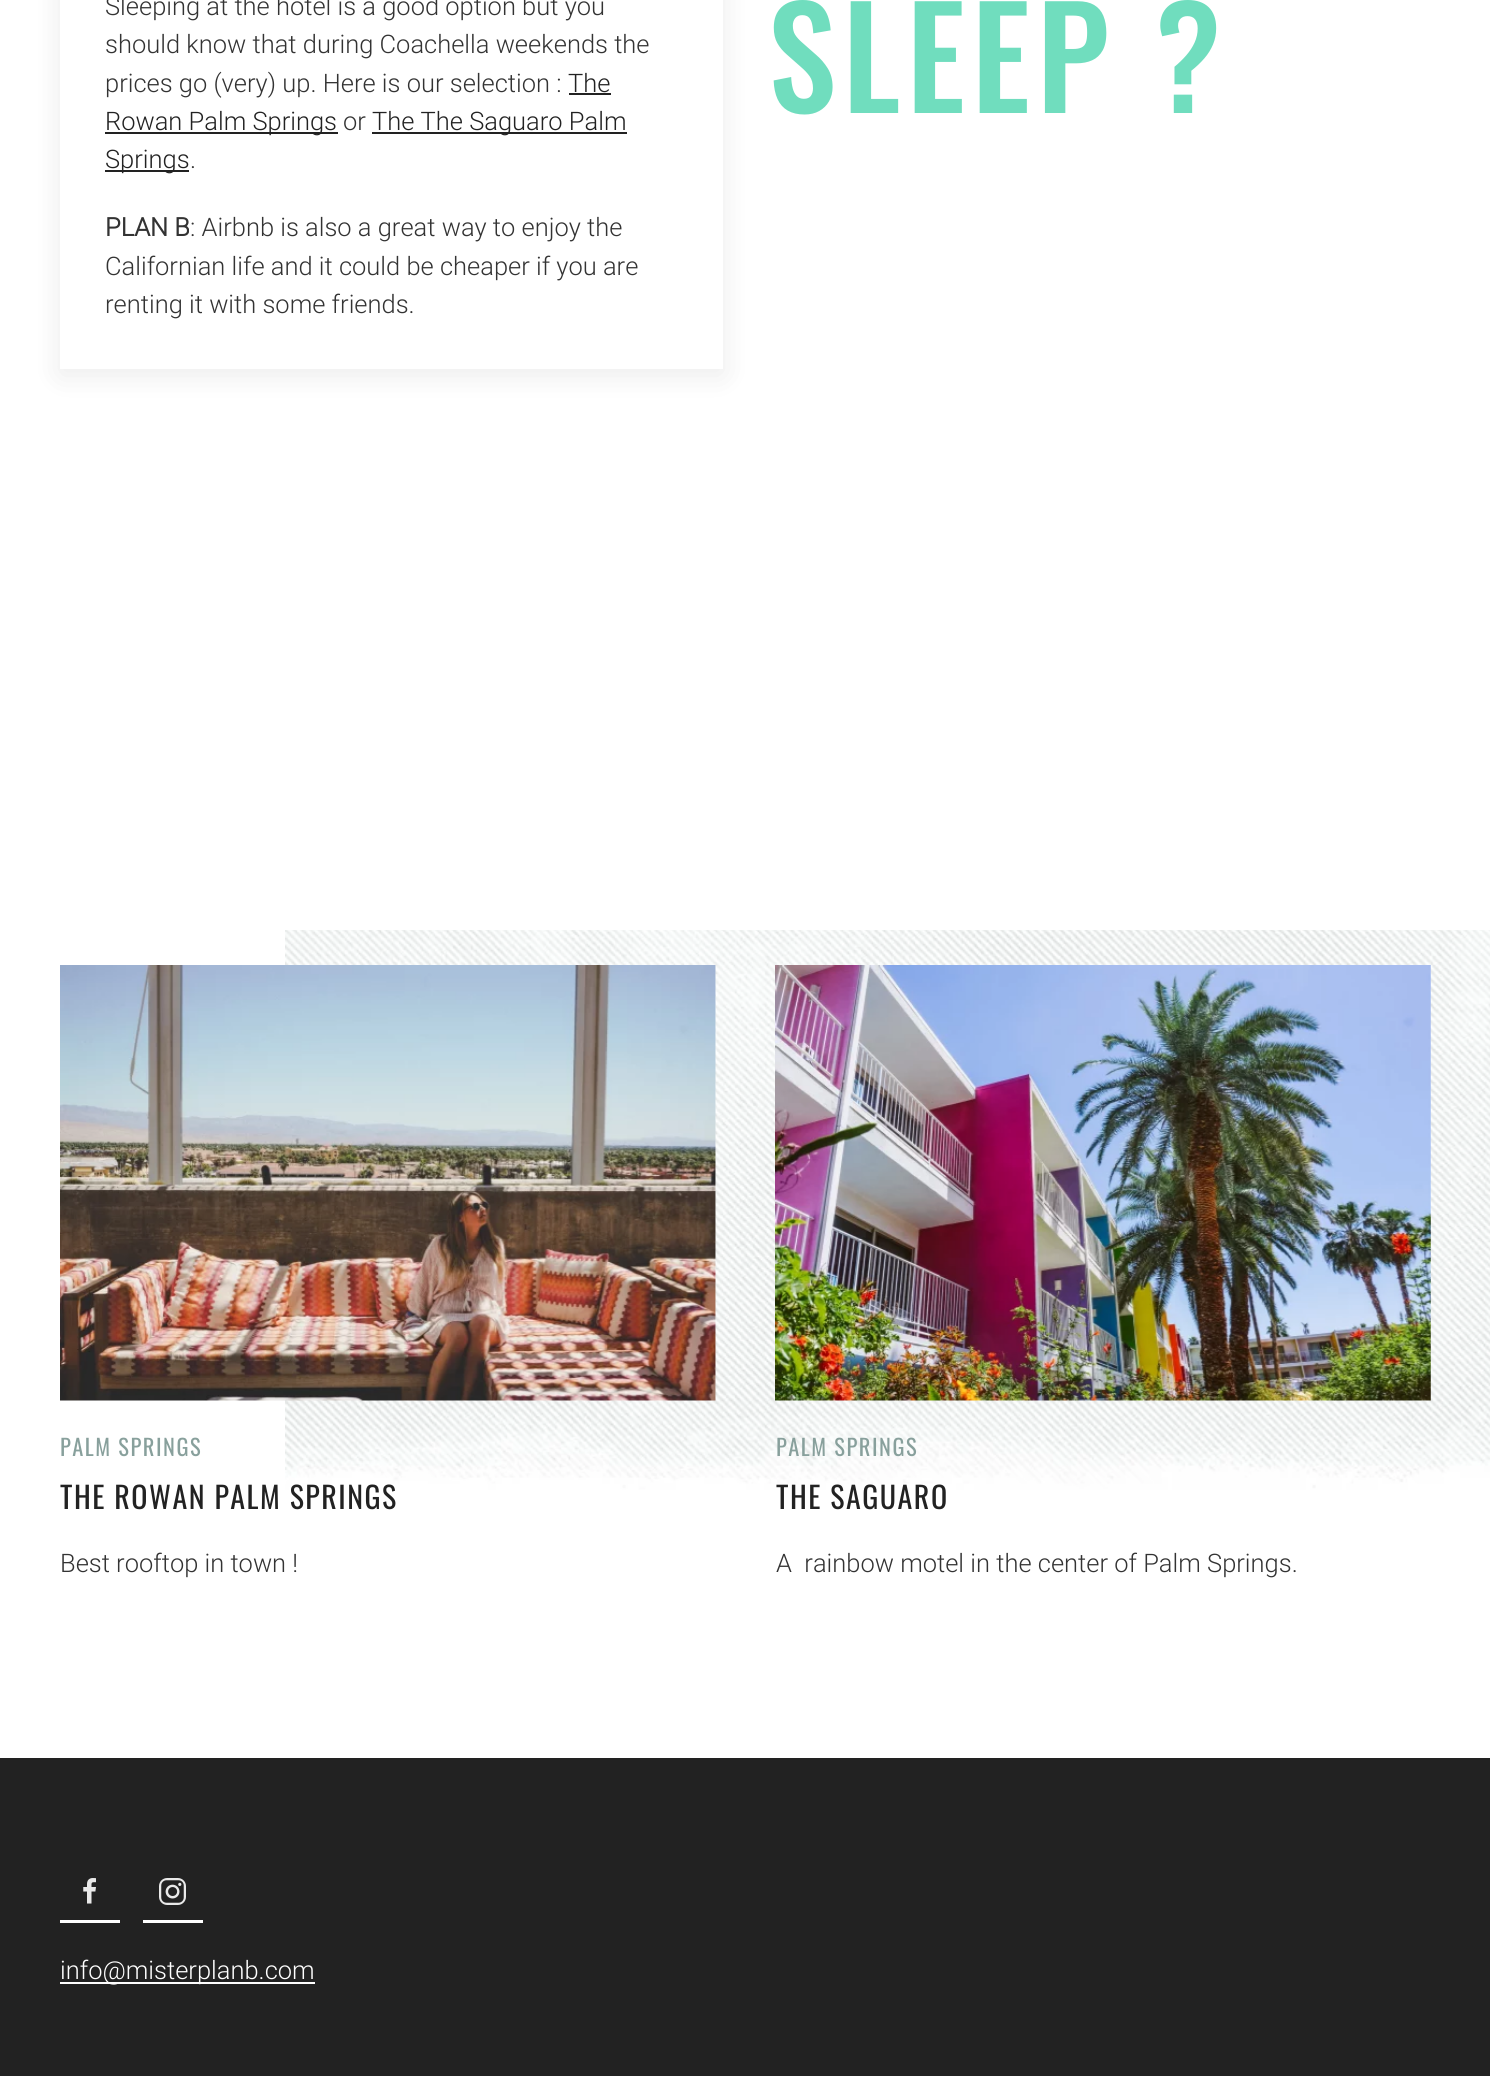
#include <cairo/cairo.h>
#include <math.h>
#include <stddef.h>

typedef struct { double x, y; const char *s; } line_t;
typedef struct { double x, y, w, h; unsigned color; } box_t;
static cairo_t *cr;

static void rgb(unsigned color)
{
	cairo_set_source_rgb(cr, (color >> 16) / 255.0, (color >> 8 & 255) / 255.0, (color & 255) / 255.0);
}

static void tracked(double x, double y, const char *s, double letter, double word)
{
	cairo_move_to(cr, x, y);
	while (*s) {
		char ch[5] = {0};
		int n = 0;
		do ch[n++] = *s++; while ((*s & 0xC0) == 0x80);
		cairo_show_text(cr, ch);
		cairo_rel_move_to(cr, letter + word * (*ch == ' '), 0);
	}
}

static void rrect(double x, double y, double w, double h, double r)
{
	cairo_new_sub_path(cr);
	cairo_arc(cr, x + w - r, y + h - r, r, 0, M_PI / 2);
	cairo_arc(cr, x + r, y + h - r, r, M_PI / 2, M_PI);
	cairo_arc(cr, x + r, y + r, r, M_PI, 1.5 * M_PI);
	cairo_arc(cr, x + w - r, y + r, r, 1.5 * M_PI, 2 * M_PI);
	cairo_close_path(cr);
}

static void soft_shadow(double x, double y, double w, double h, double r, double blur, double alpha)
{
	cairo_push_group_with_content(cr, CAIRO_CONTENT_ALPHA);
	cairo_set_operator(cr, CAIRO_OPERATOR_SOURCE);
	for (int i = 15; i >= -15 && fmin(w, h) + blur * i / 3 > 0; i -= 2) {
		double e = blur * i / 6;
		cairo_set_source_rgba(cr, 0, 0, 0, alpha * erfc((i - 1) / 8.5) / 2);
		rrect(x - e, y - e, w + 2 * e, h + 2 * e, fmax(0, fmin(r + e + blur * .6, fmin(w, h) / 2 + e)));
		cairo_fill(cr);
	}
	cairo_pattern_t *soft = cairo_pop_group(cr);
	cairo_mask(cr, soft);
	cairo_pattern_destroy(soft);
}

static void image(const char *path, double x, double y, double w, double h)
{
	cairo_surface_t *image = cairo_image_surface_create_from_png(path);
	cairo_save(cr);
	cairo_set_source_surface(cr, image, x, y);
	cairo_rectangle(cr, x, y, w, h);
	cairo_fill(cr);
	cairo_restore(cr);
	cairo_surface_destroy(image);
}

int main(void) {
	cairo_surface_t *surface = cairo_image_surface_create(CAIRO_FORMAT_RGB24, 1490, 2076);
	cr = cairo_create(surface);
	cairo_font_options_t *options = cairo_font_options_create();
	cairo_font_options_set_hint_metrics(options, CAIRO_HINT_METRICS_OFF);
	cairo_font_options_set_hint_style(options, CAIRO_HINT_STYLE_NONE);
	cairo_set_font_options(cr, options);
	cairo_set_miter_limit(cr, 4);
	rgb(0xffffff);
	cairo_paint(cr);
	rgb(0x000000);
	soft_shadow(60, -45, 663, 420, 0, 15, 0.08);
	{
		static const box_t items[] = {
			{60, 0, 663, 369, 0xffffff},
			{569, 93, 42, 2, 0x222222},
			{105, 132, 233, 2, 0x222222},
			{372, 132, 255, 2, 0x222222},
			{105, 170, 84, 2, 0x222222},
		};
		for (size_t i = 0; i < sizeof items / sizeof *items; i++) {
			rgb(items[i].color);
			cairo_rectangle(cr, items[i].x, items[i].y, items[i].w, items[i].h);
			cairo_fill(cr);
		}
	}
	image("img/1.png", 285, 930, 1205, 560);
	image("img/2.png", 60, 965, 656, 436);
	image("img/3.png", 775, 965, 656, 436);
	cairo_rectangle(cr, 0, 1758, 1490, 318);
	cairo_fill(cr);
	rgb(0xffffff);
	cairo_rectangle(cr, 60, 1920, 60, 3);
	cairo_fill(cr);
	image("img/4.png", 83, 1878, 13, 26);
	cairo_rectangle(cr, 143, 1920, 60, 3);
	cairo_fill(cr);
	image("img/5.png", 159, 1878, 27, 27);
	cairo_rectangle(cr, 60, 1982, 255, 2);
	cairo_fill(cr);
	cairo_select_font_face(cr, "Roboto Light", CAIRO_FONT_SLANT_NORMAL, CAIRO_FONT_WEIGHT_NORMAL);
	cairo_set_font_size(cr, 25.5);
	rgb(0x333333);
	{
		static const line_t items[] = {
			{105, 15, "Sleeping at the hotel is a good option but you"},
			{105, 53, "should know that during Coachella weekends the"},
			{105, 92, "prices go (very) up. Here is our selection :"},
		};
		for (size_t i = 0; i < sizeof items / sizeof *items; i++) {
			cairo_move_to(cr, items[i].x, items[i].y);
			cairo_show_text(cr, items[i].s);
		}
	}
	rgb(0x222222);
	cairo_move_to(cr, 568, 92);
	cairo_show_text(cr, "The");
	cairo_move_to(cr, 105, 130);
	cairo_show_text(cr, "Rowan Palm Springs");
	rgb(0x333333);
	cairo_move_to(cr, 343, 130);
	cairo_show_text(cr, "or");
	rgb(0x222222);
	cairo_move_to(cr, 372, 130);
	cairo_show_text(cr, "The The Saguaro Palm");
	cairo_move_to(cr, 105, 168);
	cairo_show_text(cr, "Springs");
	rgb(0x333333);
	cairo_move_to(cr, 190, 168);
	cairo_show_text(cr, ".");
	cairo_select_font_face(cr, "Roboto", CAIRO_FONT_SLANT_NORMAL, CAIRO_FONT_WEIGHT_BOLD);
	cairo_move_to(cr, 105, 236);
	cairo_show_text(cr, "PLAN B");
	cairo_select_font_face(cr, "Roboto Light", CAIRO_FONT_SLANT_NORMAL, CAIRO_FONT_WEIGHT_NORMAL);
	{
		static const line_t items[] = {
			{190, 236, ": Airbnb is also a great way to enjoy the"},
			{105, 275, "Californian life and it could be cheaper if you are"},
			{105, 313, "renting it with some friends."},
		};
		for (size_t i = 0; i < sizeof items / sizeof *items; i++) {
			cairo_move_to(cr, items[i].x, items[i].y);
			cairo_show_text(cr, items[i].s);
		}
	}
	cairo_select_font_face(cr, "Oswald Medium", CAIRO_FONT_SLANT_NORMAL, CAIRO_FONT_WEIGHT_NORMAL);
	cairo_set_font_size(cr, 138);
	rgb(0x70ddbe);
	tracked(768, 113, "SLEEP ?", 6, 0);
	cairo_select_font_face(cr, "Oswald", CAIRO_FONT_SLANT_NORMAL, CAIRO_FONT_WEIGHT_NORMAL);
	cairo_set_font_size(cr, 22.5);
	rgb(0x88a09c);
	tracked(60, 1456, "PALM SPRINGS", 1.5, 0);
	cairo_set_font_size(cr, 30);
	rgb(0x222222);
	tracked(60, 1509, "THE ROWAN PALM SPRINGS", 1.5, 0);
	cairo_select_font_face(cr, "Roboto Light", CAIRO_FONT_SLANT_NORMAL, CAIRO_FONT_WEIGHT_NORMAL);
	cairo_set_font_size(cr, 25.5);
	rgb(0x333333);
	cairo_move_to(cr, 60, 1572);
	cairo_show_text(cr, "Best rooftop in town !");
	cairo_select_font_face(cr, "Oswald", CAIRO_FONT_SLANT_NORMAL, CAIRO_FONT_WEIGHT_NORMAL);
	cairo_set_font_size(cr, 22.5);
	rgb(0x88a09c);
	tracked(776, 1456, "PALM SPRINGS", 1.5, 0);
	cairo_set_font_size(cr, 30);
	rgb(0x222222);
	tracked(776, 1509, "THE SAGUARO", 1.5, 0);
	cairo_select_font_face(cr, "Roboto Light", CAIRO_FONT_SLANT_NORMAL, CAIRO_FONT_WEIGHT_NORMAL);
	cairo_set_font_size(cr, 25.5);
	rgb(0x333333);
	cairo_move_to(cr, 776, 1572);
	cairo_show_text(cr, "A  rainbow motel in the center of Palm Springs.");
	rgb(0xffffff);
	cairo_move_to(cr, 60, 1979);
	cairo_show_text(cr, "info@misterplanb.com");
	cairo_surface_write_to_png(surface, "page.png");
	cairo_font_options_destroy(options);
	cairo_destroy(cr);
	cairo_surface_destroy(surface);
	return 0;
}
